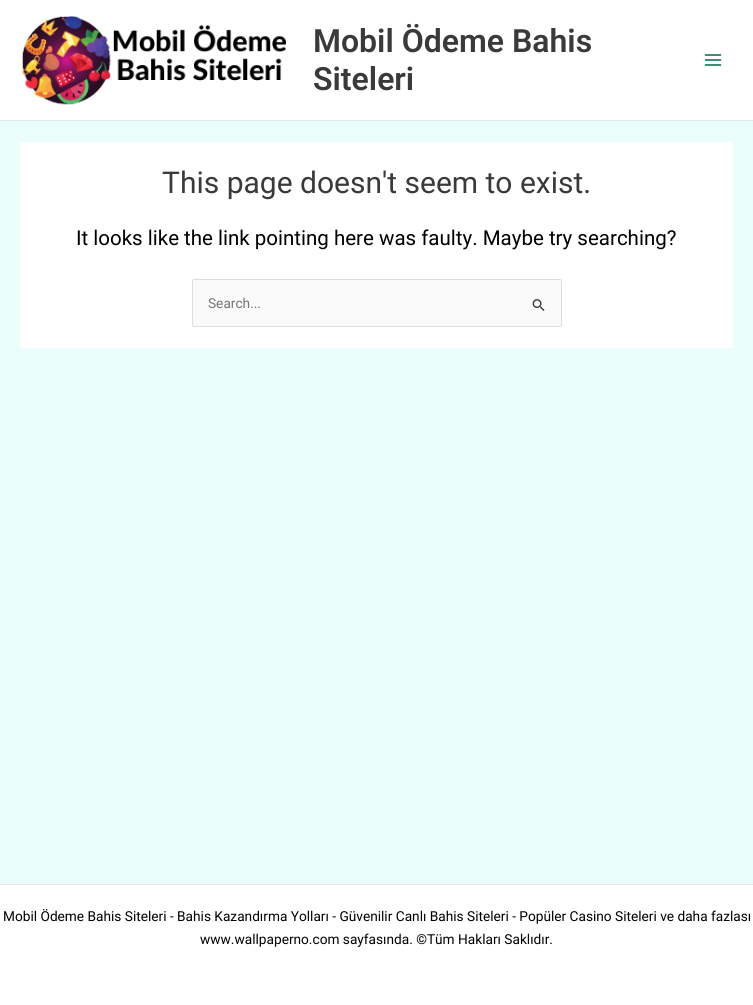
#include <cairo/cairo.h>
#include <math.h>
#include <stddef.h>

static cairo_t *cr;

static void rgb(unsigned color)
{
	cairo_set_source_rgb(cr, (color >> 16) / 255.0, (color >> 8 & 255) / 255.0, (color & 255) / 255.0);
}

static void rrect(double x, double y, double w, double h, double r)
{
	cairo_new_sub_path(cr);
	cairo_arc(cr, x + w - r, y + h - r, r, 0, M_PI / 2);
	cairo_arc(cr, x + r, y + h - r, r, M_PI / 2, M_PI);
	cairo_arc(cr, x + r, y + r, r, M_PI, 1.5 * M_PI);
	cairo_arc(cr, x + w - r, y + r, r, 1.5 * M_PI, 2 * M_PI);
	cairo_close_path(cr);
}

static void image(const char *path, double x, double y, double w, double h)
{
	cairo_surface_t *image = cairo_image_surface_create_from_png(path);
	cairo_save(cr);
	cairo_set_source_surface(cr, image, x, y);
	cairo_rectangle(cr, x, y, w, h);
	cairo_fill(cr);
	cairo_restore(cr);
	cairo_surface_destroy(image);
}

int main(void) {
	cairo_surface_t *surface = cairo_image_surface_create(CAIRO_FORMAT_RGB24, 753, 1005);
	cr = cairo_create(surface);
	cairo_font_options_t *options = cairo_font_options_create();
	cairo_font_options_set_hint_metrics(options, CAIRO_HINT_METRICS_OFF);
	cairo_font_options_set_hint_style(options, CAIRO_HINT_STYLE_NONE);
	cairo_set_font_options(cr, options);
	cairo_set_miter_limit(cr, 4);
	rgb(0xeafffb);
	cairo_paint(cr);
	rgb(0xffffff);
	cairo_rectangle(cr, 0, 0, 753, 120);
	cairo_fill(cr);
	rgb(0xe5e5e5);
	cairo_rectangle(cr, 0, 120, 753, 1);
	cairo_fill(cr);
	image("img/1.png", 22, 15, 264, 90);
	image("img/2.png", 704, 54, 18, 12);
	rgb(0xffffff);
	cairo_rectangle(cr, 20, 142, 713, 206);
	cairo_fill(cr);
	rgb(0xfafafa);
	rrect(192.5, 279.5, 369, 47, 1.5);
	cairo_fill_preserve(cr);
	rgb(0xdddddd);
	cairo_set_line_width(cr, 1);
	cairo_stroke(cr);
	image("img/3.png", 532, 299, 13, 12);
	rgb(0xffffff);
	cairo_rectangle(cr, 0, 885, 753, 120);
	cairo_fill(cr);
	rgb(0xe5e5e5);
	cairo_rectangle(cr, 0, 884, 753, 1);
	cairo_fill(cr);
	cairo_select_font_face(cr, "Roboto SemiBold", CAIRO_FONT_SLANT_NORMAL, CAIRO_FONT_WEIGHT_NORMAL);
	cairo_set_font_size(cr, 32);
	rgb(0x3a3a3a);
	cairo_move_to(cr, 313, 52);
	cairo_show_text(cr, "Mobil Ödeme Bahis");
	cairo_move_to(cr, 313, 90);
	cairo_show_text(cr, "Siteleri");
	cairo_select_font_face(cr, "Roboto", CAIRO_FONT_SLANT_NORMAL, CAIRO_FONT_WEIGHT_NORMAL);
	cairo_set_font_size(cr, 30);
	cairo_move_to(cr, 162, 193);
	cairo_show_text(cr, "This page doesn't seem to exist.");
	cairo_set_font_size(cr, 20.5);
	rgb(0x000000);
	cairo_move_to(cr, 76, 245);
	cairo_show_text(cr, "It looks like the link pointing here was faulty. Maybe try searching?");
	cairo_set_font_size(cr, 13.68);
	rgb(0x757575);
	cairo_move_to(cr, 208, 308);
	cairo_show_text(cr, "Search...");
	rgb(0x000000);
	cairo_move_to(cr, 3, 921);
	cairo_show_text(cr, "Mobil Ödeme Bahis Siteleri - Bahis Kazandırma Yolları - Güvenilir Canlı Bahis Siteleri - Popüler Casino Siteleri ve daha fazlası");
	cairo_move_to(cr, 200, 944);
	cairo_show_text(cr, "www.wallpaperno.com sayfasında. ©Tüm Hakları Saklıdır.");
	cairo_surface_write_to_png(surface, "page.png");
	cairo_font_options_destroy(options);
	cairo_destroy(cr);
	cairo_surface_destroy(surface);
	return 0;
}
